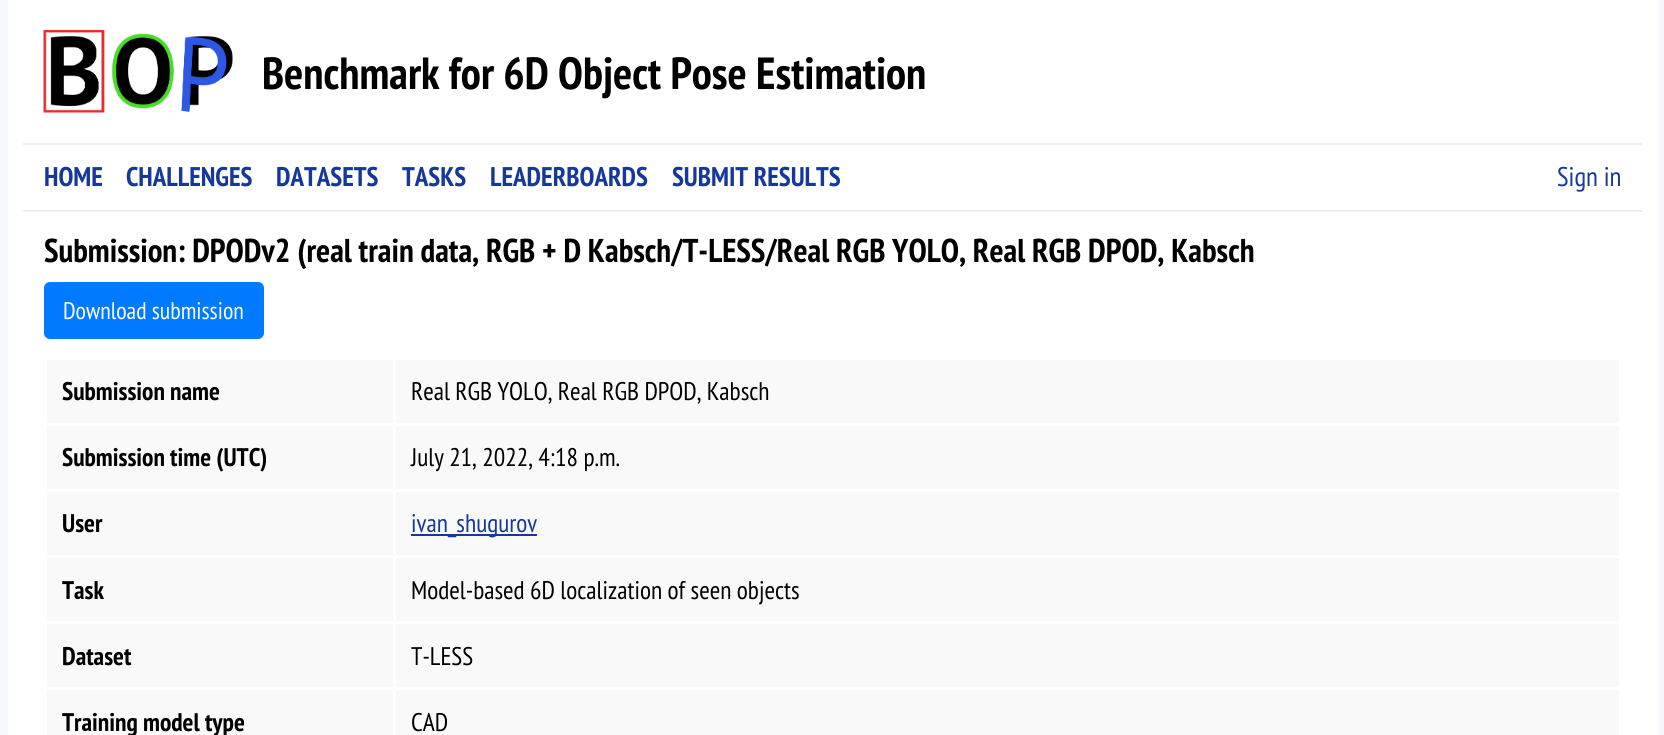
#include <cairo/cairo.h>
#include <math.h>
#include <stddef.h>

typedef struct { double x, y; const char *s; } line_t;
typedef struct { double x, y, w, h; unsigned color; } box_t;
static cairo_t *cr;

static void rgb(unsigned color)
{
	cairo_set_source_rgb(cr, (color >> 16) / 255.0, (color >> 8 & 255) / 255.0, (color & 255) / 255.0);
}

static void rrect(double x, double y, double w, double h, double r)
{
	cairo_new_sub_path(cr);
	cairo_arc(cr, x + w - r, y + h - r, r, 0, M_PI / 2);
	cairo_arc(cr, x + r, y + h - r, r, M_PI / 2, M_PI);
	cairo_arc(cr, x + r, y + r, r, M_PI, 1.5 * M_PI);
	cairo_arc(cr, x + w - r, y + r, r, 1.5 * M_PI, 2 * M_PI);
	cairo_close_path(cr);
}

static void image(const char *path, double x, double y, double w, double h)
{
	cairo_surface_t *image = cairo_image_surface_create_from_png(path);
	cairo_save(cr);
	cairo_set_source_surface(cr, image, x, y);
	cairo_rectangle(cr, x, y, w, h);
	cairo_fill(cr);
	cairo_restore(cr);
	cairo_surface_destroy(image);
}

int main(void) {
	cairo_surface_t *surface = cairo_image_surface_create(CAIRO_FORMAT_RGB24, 1664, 735);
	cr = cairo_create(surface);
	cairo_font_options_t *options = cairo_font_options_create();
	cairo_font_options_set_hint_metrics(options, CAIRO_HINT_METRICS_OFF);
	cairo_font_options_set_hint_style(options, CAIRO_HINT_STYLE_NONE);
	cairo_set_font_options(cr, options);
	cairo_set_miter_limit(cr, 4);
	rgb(0xf7f8fc);
	cairo_paint(cr);
	rgb(0xffffff);
	cairo_rectangle(cr, 8, 0, 1650, 735);
	cairo_fill(cr);
	image("img/1.png", 43, 30, 190, 83);
	rgb(0xeeeeee);
	cairo_rectangle(cr, 23, 143, 1620, 2);
	cairo_fill(cr);
	cairo_rectangle(cr, 23, 210, 1620, 2);
	cairo_fill(cr);
	rgb(0x007bff);
	rrect(45, 283, 218, 55, 5);
	cairo_fill_preserve(cr);
	cairo_stroke(cr);
	{
		static const box_t items[] = {
			{47, 360, 1572, 63, 0xf9f9f9},
			{47, 426, 1572, 63, 0xf9f9f9},
			{47, 492, 1572, 63, 0xf9f9f9},
			{411, 534, 126, 2, 0x16389c},
			{47, 558, 1572, 63, 0xf9f9f9},
			{47, 624, 1572, 63, 0xf9f9f9},
			{47, 690, 1572, 45, 0xf9f9f9},
			{393, 357, 3, 378, 0xffffff},
		};
		for (size_t i = 0; i < sizeof items / sizeof *items; i++) {
			rgb(items[i].color);
			cairo_rectangle(cr, items[i].x, items[i].y, items[i].w, items[i].h);
			cairo_fill(cr);
		}
	}
	cairo_select_font_face(cr, "PT Sans Narrow", CAIRO_FONT_SLANT_NORMAL, CAIRO_FONT_WEIGHT_BOLD);
	cairo_set_font_size(cr, 45);
	rgb(0x000000);
	cairo_move_to(cr, 262, 89);
	cairo_show_text(cr, "Benchmark for 6D Object Pose Estimation");
	cairo_set_font_size(cr, 27);
	rgb(0x16389c);
	{
		static const line_t items[] = {
			{44, 186, "HOME"},
			{126, 186, "CHALLENGES"},
			{276, 186, "DATASETS"},
			{402, 186, "TASKS"},
			{490, 186, "LEADERBOARDS"},
			{672, 186, "SUBMIT RESULTS"},
		};
		for (size_t i = 0; i < sizeof items / sizeof *items; i++) {
			cairo_move_to(cr, items[i].x, items[i].y);
			cairo_show_text(cr, items[i].s);
		}
	}
	cairo_select_font_face(cr, "PT Sans Narrow", CAIRO_FONT_SLANT_NORMAL, CAIRO_FONT_WEIGHT_NORMAL);
	cairo_move_to(cr, 1557, 186);
	cairo_show_text(cr, "Sign in");
	cairo_select_font_face(cr, "PT Sans Narrow", CAIRO_FONT_SLANT_NORMAL, CAIRO_FONT_WEIGHT_BOLD);
	cairo_set_font_size(cr, 33);
	rgb(0x000000);
	cairo_move_to(cr, 44, 262);
	cairo_show_text(cr, "Submission: DPODv2 (real train data, RGB + D Kabsch/T-LESS/Real RGB YOLO, Real RGB DPOD, Kabsch");
	cairo_select_font_face(cr, "PT Sans Narrow", CAIRO_FONT_SLANT_NORMAL, CAIRO_FONT_WEIGHT_NORMAL);
	cairo_set_font_size(cr, 24);
	rgb(0xffffff);
	cairo_move_to(cr, 63, 319);
	cairo_show_text(cr, "Download submission");
	cairo_select_font_face(cr, "PT Sans Narrow", CAIRO_FONT_SLANT_NORMAL, CAIRO_FONT_WEIGHT_BOLD);
	cairo_set_font_size(cr, 25.5);
	rgb(0x000000);
	cairo_move_to(cr, 62, 400);
	cairo_show_text(cr, "Submission name");
	cairo_select_font_face(cr, "PT Sans Narrow", CAIRO_FONT_SLANT_NORMAL, CAIRO_FONT_WEIGHT_NORMAL);
	cairo_move_to(cr, 411, 400);
	cairo_show_text(cr, "Real RGB YOLO, Real RGB DPOD, Kabsch");
	cairo_select_font_face(cr, "PT Sans Narrow", CAIRO_FONT_SLANT_NORMAL, CAIRO_FONT_WEIGHT_BOLD);
	cairo_move_to(cr, 62, 466);
	cairo_show_text(cr, "Submission time (UTC)");
	cairo_select_font_face(cr, "PT Sans Narrow", CAIRO_FONT_SLANT_NORMAL, CAIRO_FONT_WEIGHT_NORMAL);
	cairo_move_to(cr, 411, 466);
	cairo_show_text(cr, "July 21, 2022, 4:18 p.m.");
	cairo_select_font_face(cr, "PT Sans Narrow", CAIRO_FONT_SLANT_NORMAL, CAIRO_FONT_WEIGHT_BOLD);
	cairo_move_to(cr, 62, 532);
	cairo_show_text(cr, "User");
	cairo_select_font_face(cr, "PT Sans Narrow", CAIRO_FONT_SLANT_NORMAL, CAIRO_FONT_WEIGHT_NORMAL);
	rgb(0x16389c);
	cairo_move_to(cr, 411, 532);
	cairo_show_text(cr, "ivan_shugurov");
	cairo_select_font_face(cr, "PT Sans Narrow", CAIRO_FONT_SLANT_NORMAL, CAIRO_FONT_WEIGHT_BOLD);
	rgb(0x000000);
	cairo_move_to(cr, 62, 599);
	cairo_show_text(cr, "Task");
	cairo_select_font_face(cr, "PT Sans Narrow", CAIRO_FONT_SLANT_NORMAL, CAIRO_FONT_WEIGHT_NORMAL);
	cairo_move_to(cr, 411, 599);
	cairo_show_text(cr, "Model-based 6D localization of seen objects");
	cairo_select_font_face(cr, "PT Sans Narrow", CAIRO_FONT_SLANT_NORMAL, CAIRO_FONT_WEIGHT_BOLD);
	cairo_move_to(cr, 62, 665);
	cairo_show_text(cr, "Dataset");
	cairo_select_font_face(cr, "PT Sans Narrow", CAIRO_FONT_SLANT_NORMAL, CAIRO_FONT_WEIGHT_NORMAL);
	cairo_move_to(cr, 411, 665);
	cairo_show_text(cr, "T-LESS");
	cairo_select_font_face(cr, "PT Sans Narrow", CAIRO_FONT_SLANT_NORMAL, CAIRO_FONT_WEIGHT_BOLD);
	cairo_move_to(cr, 62, 731);
	cairo_show_text(cr, "Training model type");
	cairo_select_font_face(cr, "PT Sans Narrow", CAIRO_FONT_SLANT_NORMAL, CAIRO_FONT_WEIGHT_NORMAL);
	cairo_move_to(cr, 411, 731);
	cairo_show_text(cr, "CAD");
	cairo_surface_write_to_png(surface, "page.png");
	cairo_font_options_destroy(options);
	cairo_destroy(cr);
	cairo_surface_destroy(surface);
	return 0;
}
